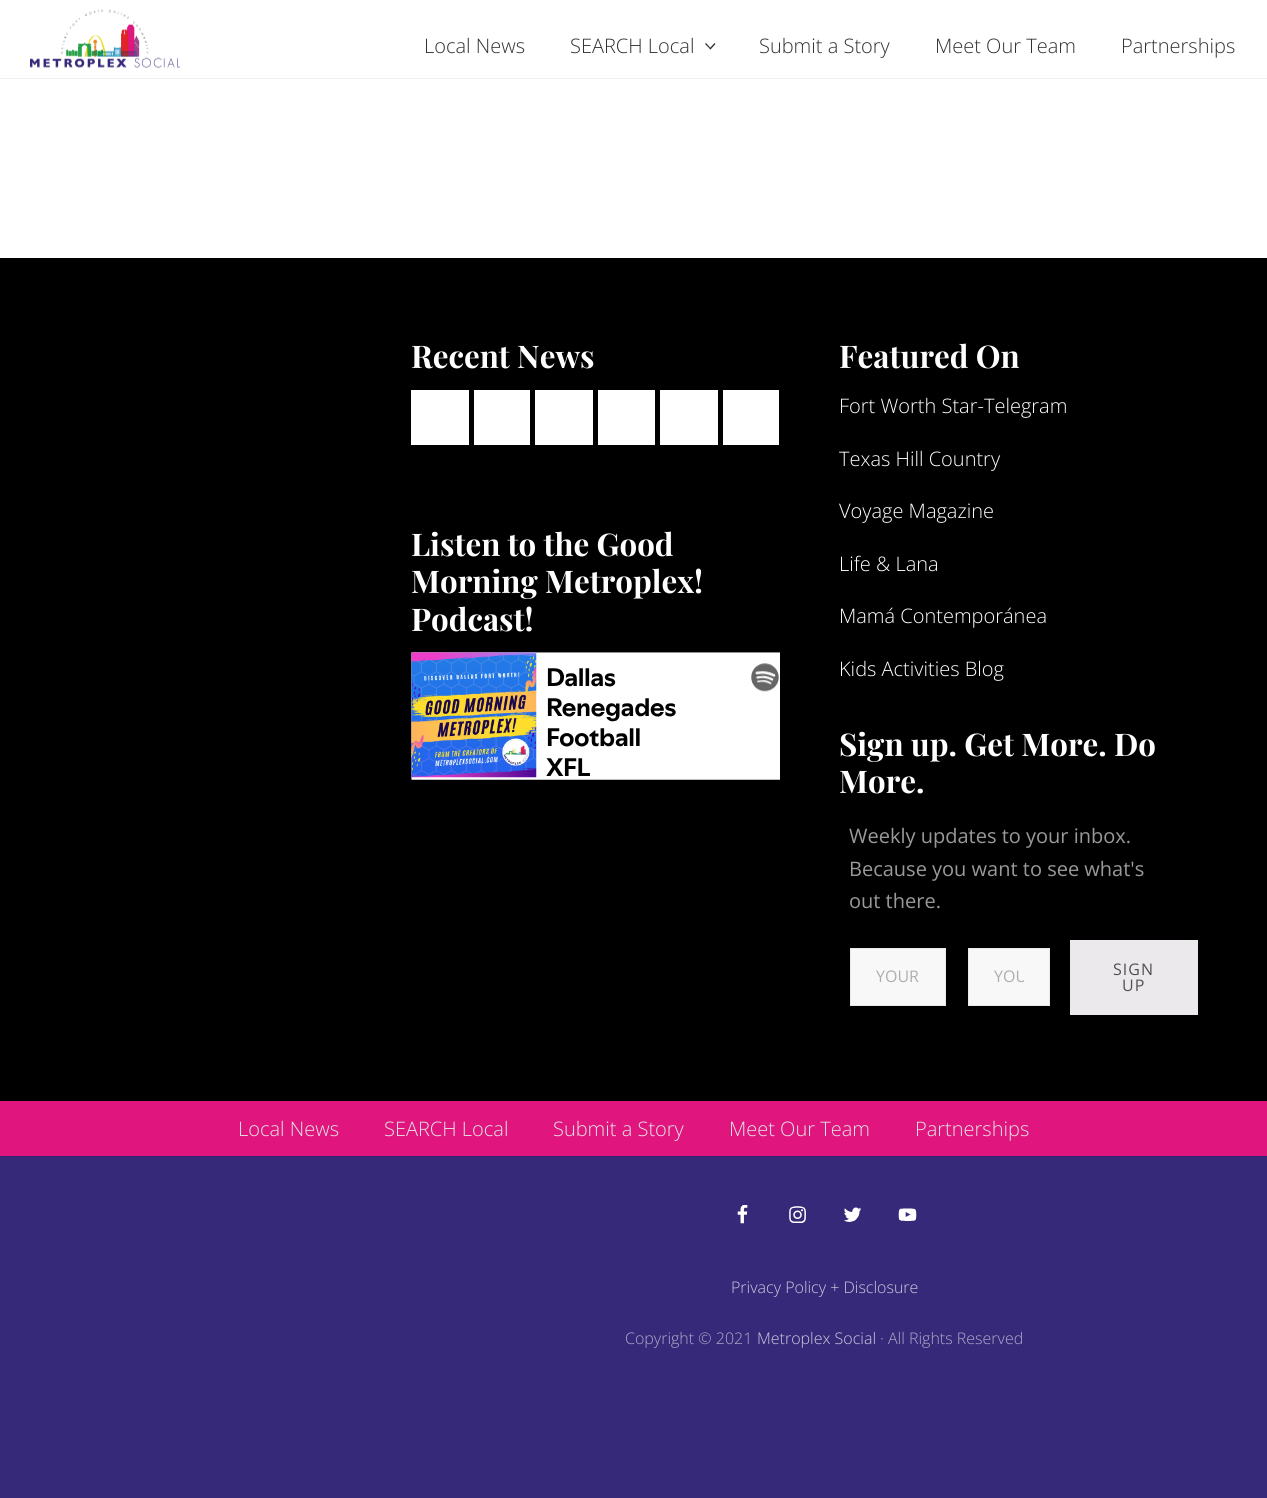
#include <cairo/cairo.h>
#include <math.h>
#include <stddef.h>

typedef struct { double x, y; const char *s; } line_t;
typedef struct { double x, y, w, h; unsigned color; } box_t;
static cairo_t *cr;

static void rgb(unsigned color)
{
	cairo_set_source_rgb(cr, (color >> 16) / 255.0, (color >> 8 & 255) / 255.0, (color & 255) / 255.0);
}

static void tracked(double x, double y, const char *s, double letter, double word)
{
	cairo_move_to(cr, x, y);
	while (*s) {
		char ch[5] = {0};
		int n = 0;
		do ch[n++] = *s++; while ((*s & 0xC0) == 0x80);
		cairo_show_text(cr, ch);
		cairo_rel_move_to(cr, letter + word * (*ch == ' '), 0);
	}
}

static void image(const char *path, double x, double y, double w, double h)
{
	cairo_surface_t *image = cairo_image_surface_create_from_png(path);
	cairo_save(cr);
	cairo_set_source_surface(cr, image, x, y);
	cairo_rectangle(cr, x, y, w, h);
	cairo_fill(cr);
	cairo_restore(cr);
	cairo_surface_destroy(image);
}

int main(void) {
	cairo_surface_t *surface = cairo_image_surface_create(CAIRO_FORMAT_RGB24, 1267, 1498);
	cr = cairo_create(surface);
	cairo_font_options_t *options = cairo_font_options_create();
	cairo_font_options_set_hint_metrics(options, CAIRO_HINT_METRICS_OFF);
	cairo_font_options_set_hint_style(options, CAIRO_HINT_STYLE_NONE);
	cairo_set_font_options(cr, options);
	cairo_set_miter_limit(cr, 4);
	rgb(0xffffff);
	cairo_paint(cr);
	rgb(0xf2f2f2);
	cairo_rectangle(cr, 0, 78, 1267, 1);
	cairo_fill(cr);
	image("img/1.png", 30, 9, 150, 59);
	rgb(0x323232);
	cairo_new_path(cr);
	cairo_move_to(cr, 714.5, 43);
	cairo_line_to(cr, 715.5, 44);
	cairo_line_to(cr, 710.5, 49.5);
	cairo_line_to(cr, 709.5, 48.5);
	cairo_close_path(cr);
	cairo_fill(cr);
	cairo_new_path(cr);
	cairo_move_to(cr, 706, 43);
	cairo_line_to(cr, 711, 48.5);
	cairo_line_to(cr, 710.5, 49.5);
	cairo_line_to(cr, 705, 44);
	cairo_close_path(cr);
	cairo_fill(cr);
	{
		static const box_t items[] = {
			{0, 258, 1267, 843, 0x000000},
			{411, 390, 58, 55, 0xffffff},
			{474, 390, 56, 55, 0xffffff},
			{535, 390, 58, 55, 0xffffff},
			{598, 390, 57, 55, 0xffffff},
			{660, 390, 58, 55, 0xffffff},
			{723, 390, 56, 55, 0xffffff},
		};
		for (size_t i = 0; i < sizeof items / sizeof *items; i++) {
			rgb(items[i].color);
			cairo_rectangle(cr, items[i].x, items[i].y, items[i].w, items[i].h);
			cairo_fill(cr);
		}
	}
	image("img/2.png", 411, 652, 369, 128);
	rgb(0xf8f8f8);
	cairo_rectangle(cr, 850.5, 948.5, 95, 57);
	cairo_fill_preserve(cr);
	rgb(0xe9e9e9);
	cairo_set_line_width(cr, 1);
	cairo_stroke(cr);
	rgb(0xf8f8f8);
	cairo_rectangle(cr, 968.5, 948.5, 81, 57);
	cairo_fill_preserve(cr);
	rgb(0xe9e9e9);
	cairo_stroke(cr);
	{
		static const box_t items[] = {
			{1070, 940, 128, 75, 0xebe9eb},
			{0, 1101, 1267, 55, 0xe0167e},
			{0, 1157, 1267, 341, 0x372979},
			{0, 1156, 1267, 1, 0x32256d},
		};
		for (size_t i = 0; i < sizeof items / sizeof *items; i++) {
			rgb(items[i].color);
			cairo_rectangle(cr, items[i].x, items[i].y, items[i].w, items[i].h);
			cairo_fill(cr);
		}
	}
	image("img/3.png", 737, 1205, 11, 19);
	image("img/4.png", 789, 1206, 17, 17);
	image("img/5.png", 844, 1207, 18, 15);
	image("img/6.png", 898, 1208, 19, 13);
	cairo_select_font_face(cr, "Open Sans Light", CAIRO_FONT_SLANT_NORMAL, CAIRO_FONT_WEIGHT_NORMAL);
	cairo_set_font_size(cr, 20);
	rgb(0x323232);
	{
		static const line_t items[] = {
			{424, 53, "Local News"},
			{570, 53, "SEARCH Local"},
			{759, 53, "Submit a Story"},
			{935, 53, "Meet Our Team"},
			{1121, 53, "Partnerships"},
		};
		for (size_t i = 0; i < sizeof items / sizeof *items; i++) {
			cairo_move_to(cr, items[i].x, items[i].y);
			cairo_show_text(cr, items[i].s);
		}
	}
	cairo_select_font_face(cr, "Playfair Display", CAIRO_FONT_SLANT_NORMAL, CAIRO_FONT_WEIGHT_BOLD);
	cairo_set_font_size(cr, 31.25);
	rgb(0xffffff);
	{
		static const line_t items[] = {
			{411, 368, "Recent News"},
			{411, 556, "Listen to the Good"},
			{411, 593, "Morning Metroplex!"},
			{411, 631, "Podcast!"},
			{839, 368, "Featured On"},
		};
		for (size_t i = 0; i < sizeof items / sizeof *items; i++) {
			cairo_move_to(cr, items[i].x, items[i].y);
			cairo_show_text(cr, items[i].s);
		}
	}
	cairo_select_font_face(cr, "Open Sans Light", CAIRO_FONT_SLANT_NORMAL, CAIRO_FONT_WEIGHT_NORMAL);
	cairo_set_font_size(cr, 20);
	{
		static const line_t items[] = {
			{839, 413, "Fort Worth Star-Telegram"},
			{839, 466, "Texas Hill Country"},
			{839, 518, "Voyage Magazine"},
			{839, 571, "Life & Lana"},
			{839, 623, "Mamá Contemporánea"},
			{839, 676, "Kids Activities Blog"},
		};
		for (size_t i = 0; i < sizeof items / sizeof *items; i++) {
			cairo_move_to(cr, items[i].x, items[i].y);
			cairo_show_text(cr, items[i].s);
		}
	}
	cairo_select_font_face(cr, "Playfair Display", CAIRO_FONT_SLANT_NORMAL, CAIRO_FONT_WEIGHT_BOLD);
	cairo_set_font_size(cr, 31.25);
	cairo_move_to(cr, 839, 756);
	cairo_show_text(cr, "Sign up. Get More. Do");
	cairo_move_to(cr, 839, 793);
	cairo_show_text(cr, "More.");
	cairo_select_font_face(cr, "Open Sans", CAIRO_FONT_SLANT_NORMAL, CAIRO_FONT_WEIGHT_NORMAL);
	cairo_set_font_size(cr, 20);
	rgb(0x999999);
	{
		static const line_t items[] = {
			{849, 843, "Weekly updates to your inbox."},
			{849, 876, "Because you want to see what's"},
			{849, 908, "out there."},
		};
		for (size_t i = 0; i < sizeof items / sizeof *items; i++) {
			cairo_move_to(cr, items[i].x, items[i].y);
			cairo_show_text(cr, items[i].s);
		}
	}
	cairo_set_font_size(cr, 16);
	rgb(0xaeaeae);
	cairo_move_to(cr, 876, 982);
	cairo_show_text(cr, "YOUR");
	cairo_save(cr);
	cairo_rectangle(cr, 994, 965, 30, 23);
	cairo_clip(cr);
	cairo_move_to(cr, 994, 982);
	cairo_show_text(cr, "YOU");
	cairo_restore(cr);
	rgb(0x515151);
	tracked(1113, 975, "SIGN", 1, 0);
	tracked(1122, 991, "UP", 1, 0);
	cairo_select_font_face(cr, "Open Sans Light", CAIRO_FONT_SLANT_NORMAL, CAIRO_FONT_WEIGHT_NORMAL);
	cairo_set_font_size(cr, 20);
	rgb(0xe4e4e4);
	{
		static const line_t items[] = {
			{238, 1136, "Local News"},
			{384, 1136, "SEARCH Local"},
			{553, 1136, "Submit a Story"},
			{729, 1136, "Meet Our Team"},
			{915, 1136, "Partnerships"},
		};
		for (size_t i = 0; i < sizeof items / sizeof *items; i++) {
			cairo_move_to(cr, items[i].x, items[i].y);
			cairo_show_text(cr, items[i].s);
		}
	}
	cairo_set_font_size(cr, 16);
	rgb(0xcdcade);
	cairo_move_to(cr, 731, 1293);
	cairo_show_text(cr, "Privacy Policy + Disclosure");
	rgb(0xafa9c9);
	cairo_move_to(cr, 625, 1344);
	cairo_show_text(cr, "Copyright © 2021");
	rgb(0xcdcade);
	cairo_move_to(cr, 757, 1344);
	cairo_show_text(cr, "Metroplex Social");
	rgb(0xafa9c9);
	cairo_move_to(cr, 880, 1344);
	cairo_show_text(cr, "· All Rights Reserved");
	cairo_surface_write_to_png(surface, "page.png");
	cairo_font_options_destroy(options);
	cairo_destroy(cr);
	cairo_surface_destroy(surface);
	return 0;
}
